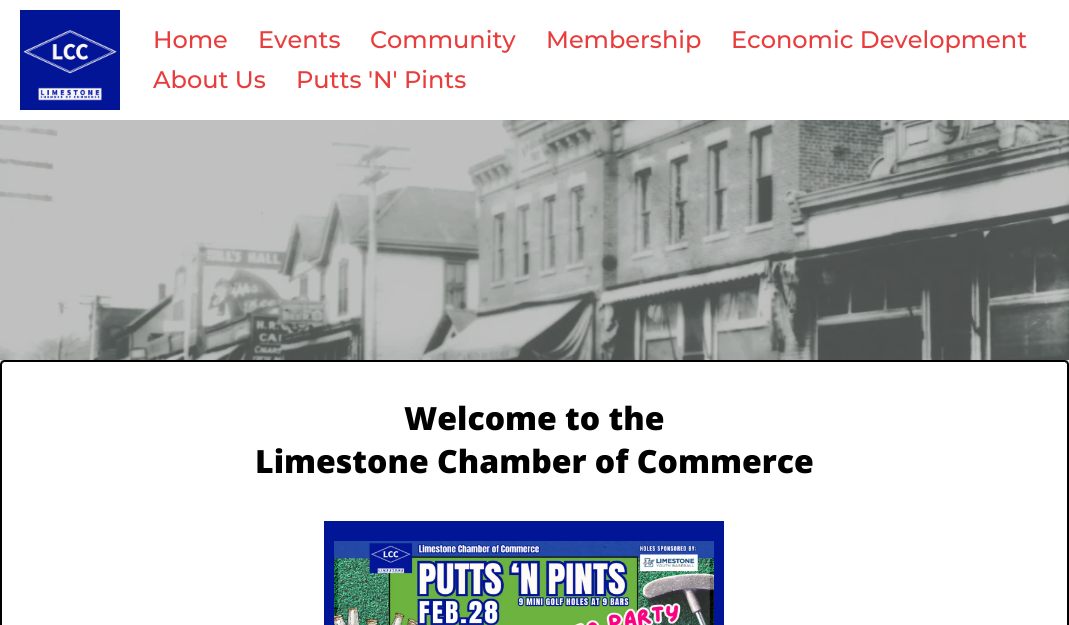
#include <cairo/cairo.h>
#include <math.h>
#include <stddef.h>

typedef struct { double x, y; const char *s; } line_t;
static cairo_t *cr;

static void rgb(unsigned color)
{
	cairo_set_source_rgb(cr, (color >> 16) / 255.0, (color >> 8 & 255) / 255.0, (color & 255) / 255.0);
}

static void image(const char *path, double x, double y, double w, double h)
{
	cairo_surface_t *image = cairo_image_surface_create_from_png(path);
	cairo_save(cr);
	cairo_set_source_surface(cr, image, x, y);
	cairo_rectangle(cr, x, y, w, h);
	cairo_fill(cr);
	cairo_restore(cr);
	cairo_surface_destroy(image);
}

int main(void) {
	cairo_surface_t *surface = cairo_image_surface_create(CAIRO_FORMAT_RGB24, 1069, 625);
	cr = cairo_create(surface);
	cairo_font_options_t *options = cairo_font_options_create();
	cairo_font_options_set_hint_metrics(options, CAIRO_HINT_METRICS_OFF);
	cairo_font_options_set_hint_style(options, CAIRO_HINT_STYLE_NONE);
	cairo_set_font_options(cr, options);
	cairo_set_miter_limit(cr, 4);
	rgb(0xffffff);
	cairo_paint(cr);
	image("img/1.png", 20, 10, 100, 100);
	rgb(0x808080);
	cairo_rectangle(cr, 0, 120, 1069, 240);
	cairo_fill(cr);
	image("img/2.png", 0, 120, 1069, 240);
	rgb(0x000000);
	cairo_new_path(cr);
	cairo_move_to(cr, 4, 360);
	cairo_line_to(cr, 1, 361);
	cairo_line_to(cr, 3, 363);
	cairo_line_to(cr, 4, 362);
	cairo_line_to(cr, 1065, 362);
	cairo_line_to(cr, 1066, 363);
	cairo_line_to(cr, 1068, 361);
	cairo_line_to(cr, 1065, 360);
	cairo_close_path(cr);
	cairo_fill(cr);
	cairo_new_path(cr);
	cairo_move_to(cr, 1069, 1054);
	cairo_line_to(cr, 1069, 364);
	cairo_line_to(cr, 1068, 361);
	cairo_line_to(cr, 1066, 363);
	cairo_line_to(cr, 1067, 364);
	cairo_line_to(cr, 1067, 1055);
	cairo_line_to(cr, 1068, 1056);
	cairo_close_path(cr);
	cairo_fill(cr);
	cairo_new_path(cr);
	cairo_move_to(cr, 0, 364);
	cairo_line_to(cr, 0, 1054);
	cairo_line_to(cr, 1, 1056);
	cairo_line_to(cr, 2, 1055);
	cairo_line_to(cr, 2, 364);
	cairo_line_to(cr, 3, 363);
	cairo_line_to(cr, 1, 361);
	cairo_close_path(cr);
	cairo_fill(cr);
	rgb(0x011597);
	cairo_rectangle(cr, 324, 521, 400, 104);
	cairo_fill(cr);
	image("img/3.png", 334, 541, 380, 84);
	cairo_select_font_face(cr, "Montserrat Medium", CAIRO_FONT_SLANT_NORMAL, CAIRO_FONT_WEIGHT_NORMAL);
	cairo_set_font_size(cr, 24);
	rgb(0xe93d3d);
	{
		static const line_t items[] = {
			{153, 48, "Home"},
			{258, 48, "Events"},
			{370, 48, "Community"},
			{546, 48, "Membership"},
			{731, 48, "Economic Development"},
			{153, 88, "About Us"},
			{296, 88, "Putts 'N' Pints"},
		};
		for (size_t i = 0; i < sizeof items / sizeof *items; i++) {
			cairo_move_to(cr, items[i].x, items[i].y);
			cairo_show_text(cr, items[i].s);
		}
	}
	cairo_select_font_face(cr, "Open Sans ExtraBold", CAIRO_FONT_SLANT_NORMAL, CAIRO_FONT_WEIGHT_NORMAL);
	cairo_set_font_size(cr, 32);
	rgb(0x000000);
	cairo_move_to(cr, 404, 430);
	cairo_show_text(cr, "Welcome to the");
	cairo_move_to(cr, 255, 473);
	cairo_show_text(cr, "Limestone Chamber of Commerce");
	cairo_surface_write_to_png(surface, "page.png");
	cairo_font_options_destroy(options);
	cairo_destroy(cr);
	cairo_surface_destroy(surface);
	return 0;
}
